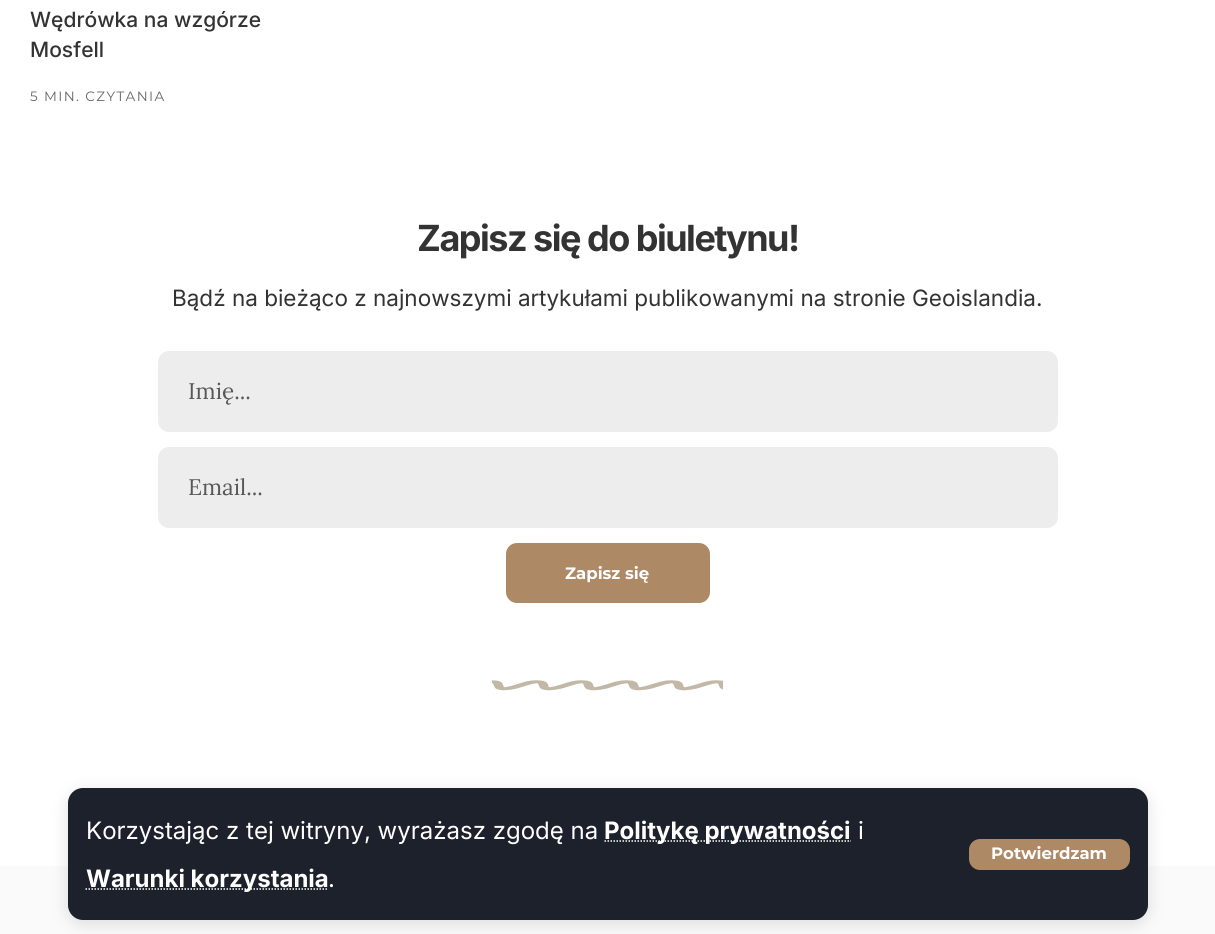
#include <cairo/cairo.h>
#include <math.h>
#include <stddef.h>

static cairo_t *cr;

static void rgb(unsigned color)
{
	cairo_set_source_rgb(cr, (color >> 16) / 255.0, (color >> 8 & 255) / 255.0, (color & 255) / 255.0);
}

static void tracked(double x, double y, const char *s, double letter, double word)
{
	cairo_move_to(cr, x, y);
	while (*s) {
		char ch[5] = {0};
		int n = 0;
		do ch[n++] = *s++; while ((*s & 0xC0) == 0x80);
		cairo_show_text(cr, ch);
		cairo_rel_move_to(cr, letter + word * (*ch == ' '), 0);
	}
}

static void rrect(double x, double y, double w, double h, double r)
{
	cairo_new_sub_path(cr);
	cairo_arc(cr, x + w - r, y + h - r, r, 0, M_PI / 2);
	cairo_arc(cr, x + r, y + h - r, r, M_PI / 2, M_PI);
	cairo_arc(cr, x + r, y + r, r, M_PI, 1.5 * M_PI);
	cairo_arc(cr, x + w - r, y + r, r, 1.5 * M_PI, 2 * M_PI);
	cairo_close_path(cr);
}

static void soft_shadow(double x, double y, double w, double h, double r, double blur, double alpha)
{
	cairo_push_group_with_content(cr, CAIRO_CONTENT_ALPHA);
	cairo_set_operator(cr, CAIRO_OPERATOR_SOURCE);
	for (int i = 15; i >= -15 && fmin(w, h) + blur * i / 3 > 0; i -= 2) {
		double e = blur * i / 6;
		cairo_set_source_rgba(cr, 0, 0, 0, alpha * erfc((i - 1) / 8.5) / 2);
		rrect(x - e, y - e, w + 2 * e, h + 2 * e, fmax(0, fmin(r + e + blur * .6, fmin(w, h) / 2 + e)));
		cairo_fill(cr);
	}
	cairo_pattern_t *soft = cairo_pop_group(cr);
	cairo_mask(cr, soft);
	cairo_pattern_destroy(soft);
}

static void image(const char *path, double x, double y, double w, double h)
{
	cairo_surface_t *image = cairo_image_surface_create_from_png(path);
	cairo_save(cr);
	cairo_set_source_surface(cr, image, x, y);
	cairo_rectangle(cr, x, y, w, h);
	cairo_fill(cr);
	cairo_restore(cr);
	cairo_surface_destroy(image);
}

int main(void) {
	cairo_surface_t *surface = cairo_image_surface_create(CAIRO_FORMAT_RGB24, 1215, 934);
	cr = cairo_create(surface);
	cairo_font_options_t *options = cairo_font_options_create();
	cairo_font_options_set_hint_metrics(options, CAIRO_HINT_METRICS_OFF);
	cairo_font_options_set_hint_style(options, CAIRO_HINT_STYLE_NONE);
	cairo_set_font_options(cr, options);
	cairo_set_miter_limit(cr, 4);
	rgb(0xffffff);
	cairo_paint(cr);
	rgb(0xededed);
	rrect(158, 351, 900, 81, 11);
	cairo_fill(cr);
	rrect(158, 447, 900, 81, 11);
	cairo_fill(cr);
	rgb(0xad8966);
	rrect(506, 543, 204, 60, 11);
	cairo_fill(cr);
	image("img/1.png", 492, 680, 231, 11);
	rgb(0xfafafa);
	cairo_rectangle(cr, 0, 866, 1215, 68);
	cairo_fill(cr);
	rgb(0x000000);
	soft_shadow(68, 792, 1080, 132, 15, 9, 0.12);
	rgb(0x1c212c);
	rrect(68, 788, 1080, 132, 15);
	cairo_fill(cr);
	cairo_new_path(cr);
	cairo_move_to(cr, 604.5, 841);
	cairo_line_to(cr, 851, 841);
	rgb(0xffffff);
	cairo_set_line_width(cr, 1.5);
	cairo_set_dash(cr, (double[]){1.5, 1.5}, 2, 0);
	cairo_stroke(cr);
	cairo_new_path(cr);
	cairo_move_to(cr, 85.5, 889);
	cairo_line_to(cr, 328.5, 889);
	cairo_stroke(cr);
	rgb(0xad8966);
	rrect(969, 839, 161, 31, 11);
	cairo_fill(cr);
	cairo_select_font_face(cr, "Inter Medium", CAIRO_FONT_SLANT_NORMAL, CAIRO_FONT_WEIGHT_NORMAL);
	cairo_set_font_size(cr, 21);
	rgb(0x333333);
	cairo_move_to(cr, 30, 27);
	cairo_show_text(cr, "Wędrówka na wzgórze");
	cairo_move_to(cr, 30, 57);
	cairo_show_text(cr, "Mosfell");
	cairo_select_font_face(cr, "Montserrat", CAIRO_FONT_SLANT_NORMAL, CAIRO_FONT_WEIGHT_NORMAL);
	cairo_set_font_size(cr, 13.5);
	rgb(0x666666);
	tracked(30, 101, "5 MIN. CZYTANIA", 1.4, 0);
	cairo_select_font_face(cr, "Inter", CAIRO_FONT_SLANT_NORMAL, CAIRO_FONT_WEIGHT_BOLD);
	cairo_set_font_size(cr, 36);
	rgb(0x333333);
	tracked(417, 251, "Zapisz się do biuletynu!", -1.5, 0);
	cairo_select_font_face(cr, "Inter", CAIRO_FONT_SLANT_NORMAL, CAIRO_FONT_WEIGHT_NORMAL);
	cairo_set_font_size(cr, 22.5);
	cairo_move_to(cr, 172, 306);
	cairo_show_text(cr, "Bądź na bieżąco z najnowszymi artykułami publikowanymi na stronie Geoislandia.");
	cairo_select_font_face(cr, "Lora", CAIRO_FONT_SLANT_NORMAL, CAIRO_FONT_WEIGHT_NORMAL);
	rgb(0x585858);
	cairo_move_to(cr, 188, 399);
	cairo_show_text(cr, "Imię...");
	cairo_move_to(cr, 188, 495);
	cairo_show_text(cr, "Email...");
	cairo_select_font_face(cr, "Montserrat", CAIRO_FONT_SLANT_NORMAL, CAIRO_FONT_WEIGHT_BOLD);
	cairo_set_font_size(cr, 16.5);
	rgb(0xffffff);
	cairo_move_to(cr, 565, 579);
	cairo_show_text(cr, "Zapisz się");
	cairo_select_font_face(cr, "Inter", CAIRO_FONT_SLANT_NORMAL, CAIRO_FONT_WEIGHT_NORMAL);
	cairo_set_font_size(cr, 24);
	cairo_move_to(cr, 86, 839);
	cairo_show_text(cr, "Korzystając z tej witryny, wyrażasz zgodę na");
	cairo_select_font_face(cr, "Inter", CAIRO_FONT_SLANT_NORMAL, CAIRO_FONT_WEIGHT_BOLD);
	cairo_move_to(cr, 604, 839);
	cairo_show_text(cr, "Politykę prywatności");
	cairo_select_font_face(cr, "Inter", CAIRO_FONT_SLANT_NORMAL, CAIRO_FONT_WEIGHT_NORMAL);
	cairo_move_to(cr, 858, 839);
	cairo_show_text(cr, "i");
	cairo_select_font_face(cr, "Inter", CAIRO_FONT_SLANT_NORMAL, CAIRO_FONT_WEIGHT_BOLD);
	cairo_move_to(cr, 86, 887);
	cairo_show_text(cr, "Warunki korzystania");
	cairo_select_font_face(cr, "Inter", CAIRO_FONT_SLANT_NORMAL, CAIRO_FONT_WEIGHT_NORMAL);
	cairo_move_to(cr, 328, 887);
	cairo_show_text(cr, ".");
	cairo_select_font_face(cr, "Montserrat", CAIRO_FONT_SLANT_NORMAL, CAIRO_FONT_WEIGHT_BOLD);
	cairo_set_font_size(cr, 16.5);
	cairo_move_to(cr, 991, 859);
	cairo_show_text(cr, "Potwierdzam");
	cairo_surface_write_to_png(surface, "page.png");
	cairo_font_options_destroy(options);
	cairo_destroy(cr);
	cairo_surface_destroy(surface);
	return 0;
}
